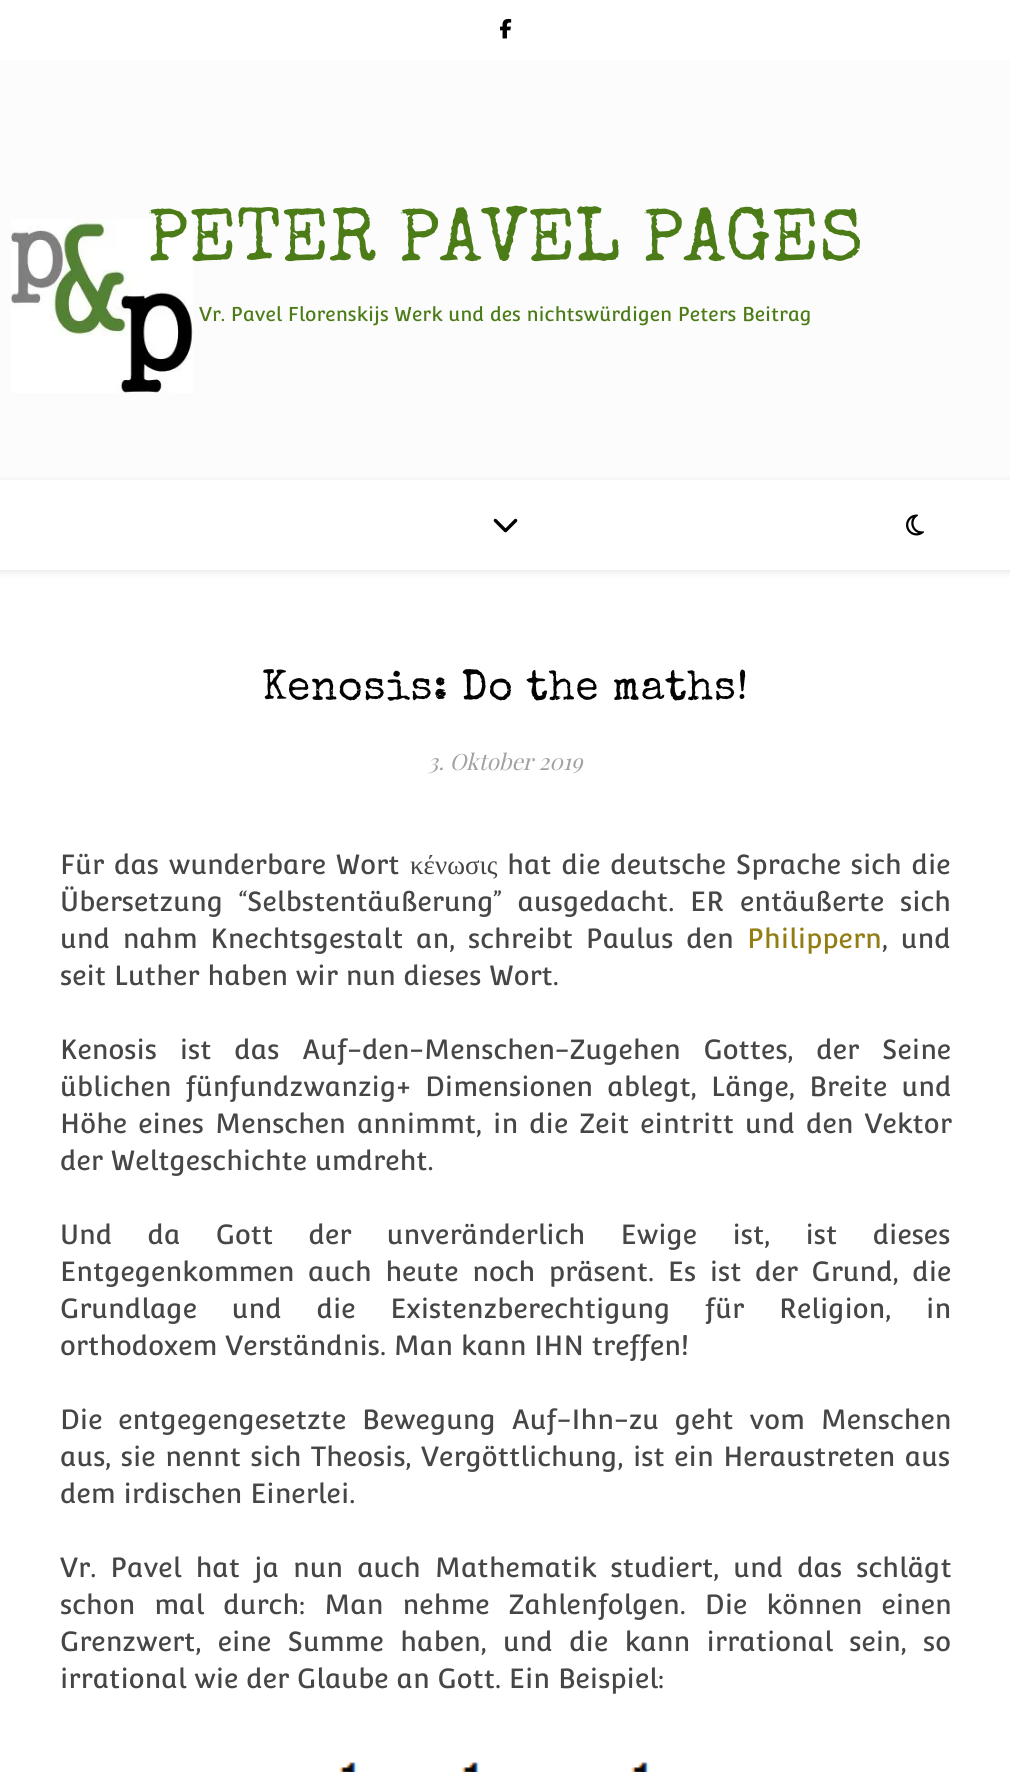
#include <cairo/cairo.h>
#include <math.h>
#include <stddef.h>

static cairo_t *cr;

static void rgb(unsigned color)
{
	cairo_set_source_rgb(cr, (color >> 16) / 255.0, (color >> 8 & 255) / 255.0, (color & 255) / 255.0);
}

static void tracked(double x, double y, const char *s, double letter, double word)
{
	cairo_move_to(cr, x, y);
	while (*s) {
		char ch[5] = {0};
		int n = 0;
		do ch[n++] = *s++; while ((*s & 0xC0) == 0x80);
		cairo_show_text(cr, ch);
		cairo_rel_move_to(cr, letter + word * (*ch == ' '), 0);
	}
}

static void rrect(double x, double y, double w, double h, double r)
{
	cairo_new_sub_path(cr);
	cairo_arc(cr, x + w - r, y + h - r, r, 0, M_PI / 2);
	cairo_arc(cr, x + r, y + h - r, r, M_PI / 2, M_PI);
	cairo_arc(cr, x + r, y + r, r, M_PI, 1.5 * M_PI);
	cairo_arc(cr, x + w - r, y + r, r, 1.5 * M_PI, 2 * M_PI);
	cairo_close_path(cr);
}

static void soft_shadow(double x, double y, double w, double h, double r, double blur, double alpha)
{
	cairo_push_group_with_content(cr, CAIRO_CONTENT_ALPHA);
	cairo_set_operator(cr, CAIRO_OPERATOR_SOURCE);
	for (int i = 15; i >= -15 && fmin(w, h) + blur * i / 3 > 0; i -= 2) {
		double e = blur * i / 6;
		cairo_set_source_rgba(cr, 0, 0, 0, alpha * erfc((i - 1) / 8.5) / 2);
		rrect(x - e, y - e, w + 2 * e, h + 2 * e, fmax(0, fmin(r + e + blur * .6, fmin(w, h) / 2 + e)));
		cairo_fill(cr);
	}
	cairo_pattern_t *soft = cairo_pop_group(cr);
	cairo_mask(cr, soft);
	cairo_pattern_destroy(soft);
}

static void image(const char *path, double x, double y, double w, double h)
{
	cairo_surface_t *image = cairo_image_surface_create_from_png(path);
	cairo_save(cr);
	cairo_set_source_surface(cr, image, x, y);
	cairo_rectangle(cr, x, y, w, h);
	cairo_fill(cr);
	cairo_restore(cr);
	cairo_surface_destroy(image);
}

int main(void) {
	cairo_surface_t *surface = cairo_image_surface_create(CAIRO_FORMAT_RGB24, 1010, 1772);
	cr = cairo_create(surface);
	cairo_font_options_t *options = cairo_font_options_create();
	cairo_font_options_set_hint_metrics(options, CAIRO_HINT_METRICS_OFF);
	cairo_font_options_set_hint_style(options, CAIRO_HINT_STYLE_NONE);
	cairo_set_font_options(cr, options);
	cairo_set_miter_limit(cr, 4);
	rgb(0xffffff);
	cairo_paint(cr);
	image("img/1.png", 500, 18, 12, 21);
	rgb(0xfcfcfc);
	cairo_rectangle(cr, 0, 60, 1010, 420);
	cairo_fill(cr);
	image("img/2.png", 11, 219, 182, 174);
	cairo_save(cr);
	cairo_set_fill_rule(cr, CAIRO_FILL_RULE_EVEN_ODD);
	cairo_new_path(cr);
	cairo_move_to(cr, 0, 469);
	cairo_line_to(cr, 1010, 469);
	cairo_line_to(cr, 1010, 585);
	cairo_line_to(cr, 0, 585);
	cairo_close_path(cr);
	cairo_move_to(cr, 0, 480);
	cairo_line_to(cr, 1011, 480);
	cairo_line_to(cr, 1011, 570);
	cairo_line_to(cr, 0, 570);
	cairo_close_path(cr);
	cairo_clip(cr);
	rgb(0x000000);
	soft_shadow(0, 482, 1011, 90, 0, 4, 0.1);
	cairo_restore(cr);
	image("img/3.png", 493, 518, 25, 15);
	image("img/4.png", 906, 514, 18, 22);
	image("img/5.png", 339, 1762, 311, 10);
	cairo_select_font_face(cr, "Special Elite", CAIRO_FONT_SLANT_NORMAL, CAIRO_FONT_WEIGHT_NORMAL);
	cairo_set_font_size(cr, 75);
	rgb(0x4c7c17);
	cairo_move_to(cr, 147, 260);
	cairo_show_text(cr, "PETER PAVEL PAGES");
	cairo_select_font_face(cr, "Convergence", CAIRO_FONT_SLANT_NORMAL, CAIRO_FONT_WEIGHT_NORMAL);
	cairo_set_font_size(cr, 19.5);
	cairo_move_to(cr, 199, 321);
	cairo_show_text(cr, "Vr. Pavel Florenskijs Werk und des nichtswürdigen Peters Beitrag");
	cairo_select_font_face(cr, "Special Elite", CAIRO_FONT_SLANT_NORMAL, CAIRO_FONT_WEIGHT_NORMAL);
	cairo_set_font_size(cr, 42);
	rgb(0x030303);
	tracked(262, 699, "Kenosis: Do the maths!", 0.75, 0);
	cairo_select_font_face(cr, "Playfair Display", CAIRO_FONT_SLANT_ITALIC, CAIRO_FONT_WEIGHT_NORMAL);
	cairo_set_font_size(cr, 22.5);
	rgb(0xa1a1a1);
	cairo_move_to(cr, 428, 770);
	cairo_show_text(cr, "3. Oktober 2019");
	cairo_select_font_face(cr, "Convergence", CAIRO_FONT_SLANT_NORMAL, CAIRO_FONT_WEIGHT_NORMAL);
	cairo_set_font_size(cr, 27);
	rgb(0x464646);
	tracked(60, 874, "Für das wunderbare Wort", 0, 2);
	cairo_select_font_face(cr, "Liberation Serif", CAIRO_FONT_SLANT_NORMAL, CAIRO_FONT_WEIGHT_NORMAL);
	cairo_move_to(cr, 410, 874);
	cairo_show_text(cr, "κένωσις");
	cairo_select_font_face(cr, "Convergence", CAIRO_FONT_SLANT_NORMAL, CAIRO_FONT_WEIGHT_NORMAL);
	tracked(507, 874, "hat die deutsche Sprache sich die", 0, 2);
	tracked(60, 911, "Übersetzung “Selbstentäußerung” ausgedacht. ER entäußerte sich", 0, 8);
	tracked(60, 948, "und nahm Knechtsgestalt an, schreibt Paulus den", 0, 5);
	rgb(0x937e14);
	cairo_move_to(cr, 747, 948);
	cairo_show_text(cr, "Philippern");
	rgb(0x464646);
	tracked(882, 948, ", und", 0, 5);
	cairo_move_to(cr, 60, 985);
	cairo_show_text(cr, "seit Luther haben wir nun dieses Wort.");
	tracked(60, 1059, "Kenosis ist das Auf-den-Menschen-Zugehen Gottes, der Seine", 0, 15);
	tracked(60, 1096, "üblichen fünfundzwanzig+", 0, 6.5);
	tracked(425, 1096, "Dimensionen ablegt, Länge, Breite und", 0, 6.5);
	tracked(60, 1133, "Höhe eines Menschen annimmt, in die Zeit eintritt und den Vektor", 0, 3.25);
	cairo_move_to(cr, 60, 1170);
	cairo_show_text(cr, "der Weltgeschichte umdreht.");
	tracked(60, 1244, "Und da Gott der unveränderlich Ewige ist, ist dieses", 0, 27.5);
	tracked(60, 1281, "Entgegenkommen auch heute noch präsent. Es ist der Grund, die", 0, 5.75);
	tracked(60, 1318, "Grundlage und die Existenzberechtigung für Religion, in", 0, 27);
	cairo_move_to(cr, 60, 1355);
	cairo_show_text(cr, "orthodoxem Verständnis. Man kann IHN treffen!");
	tracked(60, 1429, "Die entgegengesetzte Bewegung Auf-Ihn-zu geht vom Menschen", 0, 8);
	tracked(60, 1466, "aus, sie nennt sich Theosis, Vergöttlichung, ist ein Heraustreten aus", 0, 1.75);
	cairo_move_to(cr, 60, 1503);
	cairo_show_text(cr, "dem irdischen Einerlei.");
	tracked(60, 1577, "Vr. Pavel hat ja nun auch Mathematik studiert, und das schlägt", 0, 6.25);
	tracked(60, 1614, "schon mal durch: Man nehme Zahlenfolgen. Die können einen", 0, 11.25);
	tracked(60, 1651, "Grenzwert, eine Summe haben, und die kann irrational sein, so", 0, 8.5);
	cairo_move_to(cr, 60, 1688);
	cairo_show_text(cr, "irrational wie der Glaube an Gott. Ein Beispiel:");
	cairo_surface_write_to_png(surface, "page.png");
	cairo_font_options_destroy(options);
	cairo_destroy(cr);
	cairo_surface_destroy(surface);
	return 0;
}
